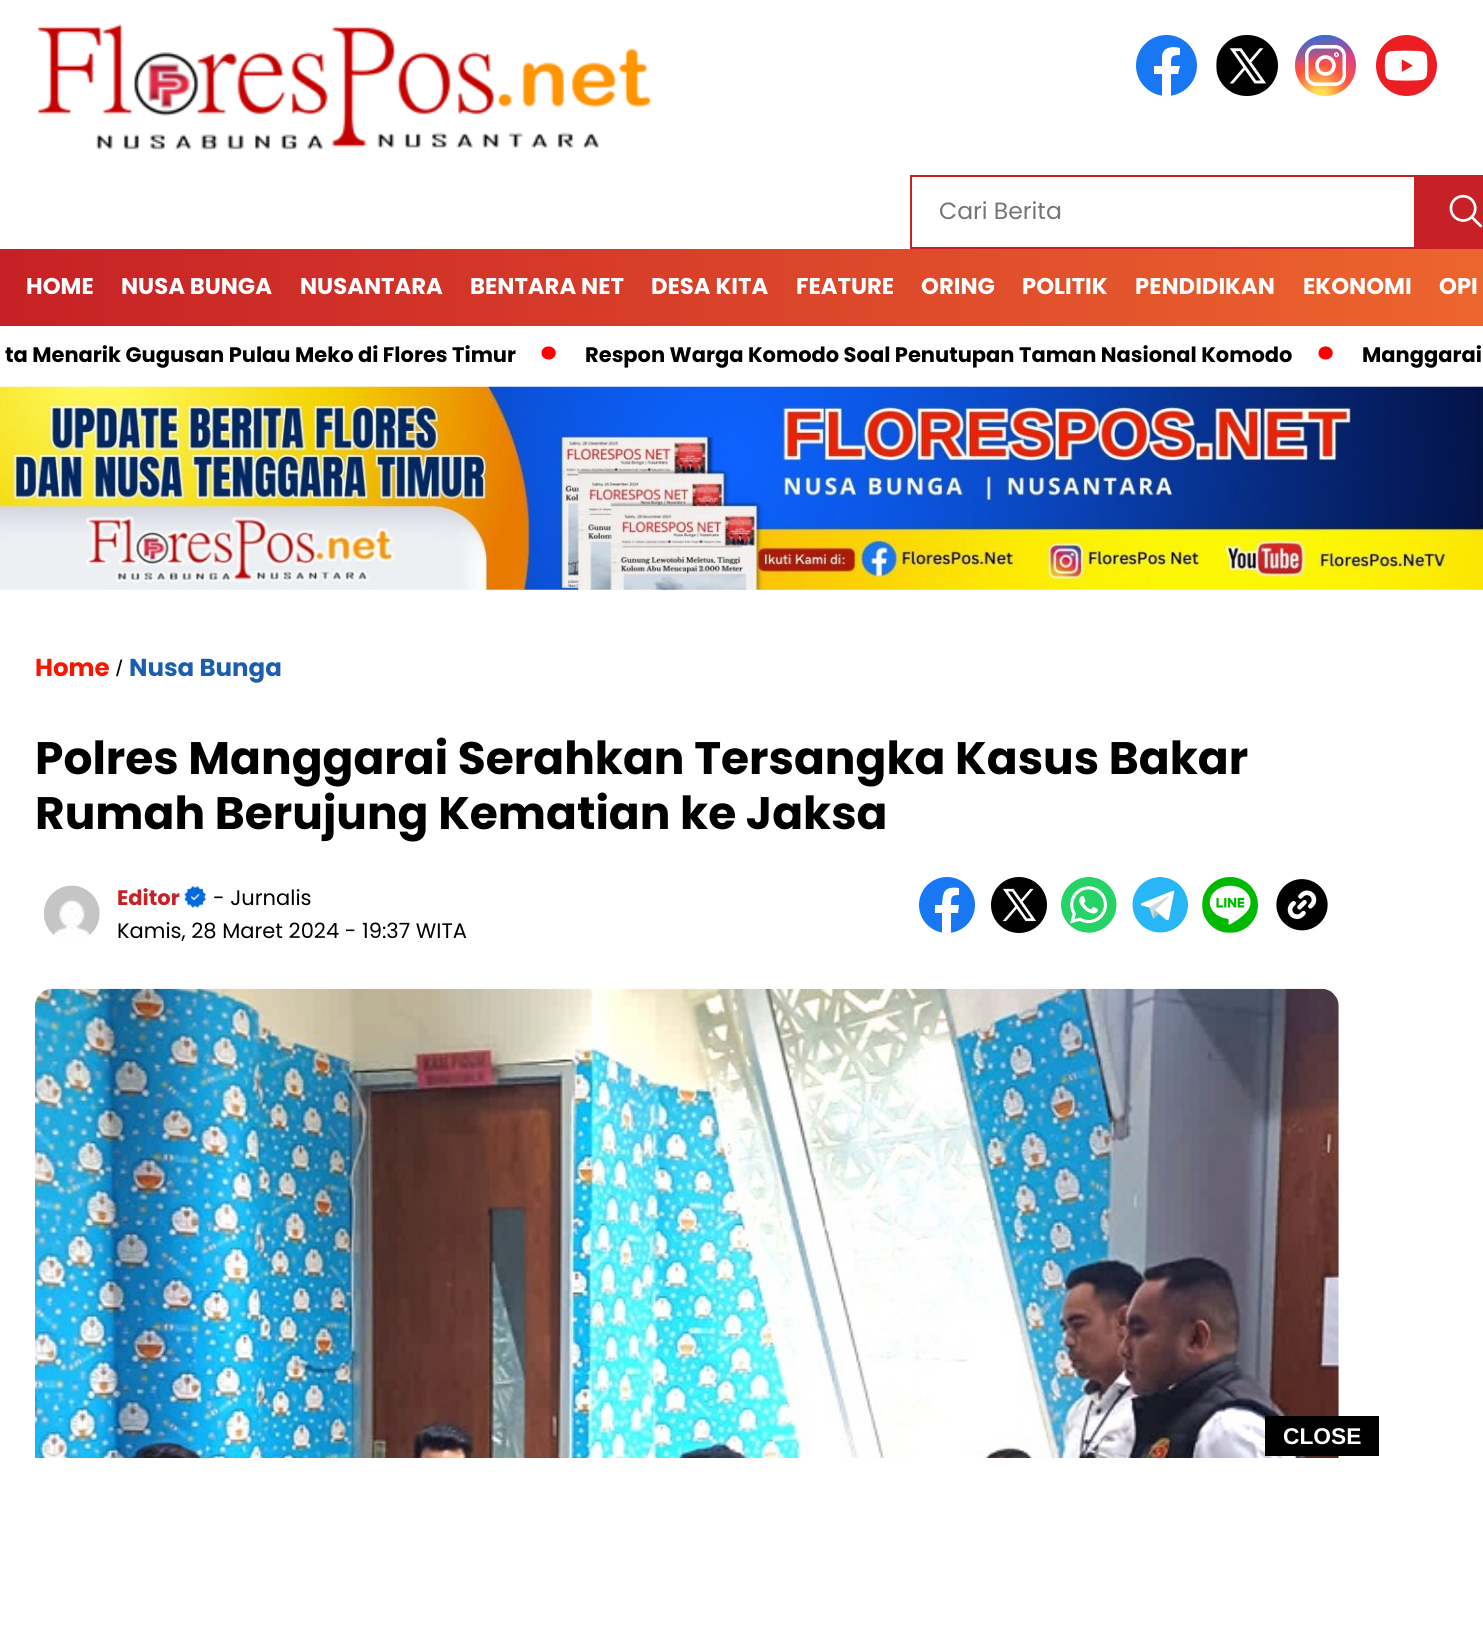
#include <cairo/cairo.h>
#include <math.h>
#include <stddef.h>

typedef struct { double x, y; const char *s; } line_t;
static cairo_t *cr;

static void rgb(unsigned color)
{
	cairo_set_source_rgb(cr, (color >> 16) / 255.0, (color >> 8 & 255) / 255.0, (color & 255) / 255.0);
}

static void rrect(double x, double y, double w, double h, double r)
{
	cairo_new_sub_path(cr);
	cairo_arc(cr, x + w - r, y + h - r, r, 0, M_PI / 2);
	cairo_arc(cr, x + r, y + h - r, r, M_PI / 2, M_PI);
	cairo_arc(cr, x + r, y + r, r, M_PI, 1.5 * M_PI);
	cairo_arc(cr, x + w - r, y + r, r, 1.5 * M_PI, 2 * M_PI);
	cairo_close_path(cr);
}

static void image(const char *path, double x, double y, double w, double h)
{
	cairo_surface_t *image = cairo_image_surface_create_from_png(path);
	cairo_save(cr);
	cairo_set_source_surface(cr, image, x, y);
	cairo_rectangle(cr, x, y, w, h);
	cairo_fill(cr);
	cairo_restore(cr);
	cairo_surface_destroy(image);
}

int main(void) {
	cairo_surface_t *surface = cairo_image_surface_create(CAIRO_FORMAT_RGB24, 1483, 1652);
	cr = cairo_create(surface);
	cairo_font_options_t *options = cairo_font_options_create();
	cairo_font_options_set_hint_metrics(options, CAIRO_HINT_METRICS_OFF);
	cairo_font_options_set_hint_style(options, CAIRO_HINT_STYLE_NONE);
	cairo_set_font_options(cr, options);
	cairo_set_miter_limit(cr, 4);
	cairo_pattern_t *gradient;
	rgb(0xffffff);
	cairo_paint(cr);
	image("img/1.png", 37, 24, 615, 126);
	rgb(0x1877f2);
	cairo_arc(cr, 1166.5, 65.5, 30.5, 0, 2 * M_PI);
	cairo_fill(cr);
	rgb(0xffffff);
	cairo_new_path(cr);
	cairo_move_to(cr, 1178, 74);
	cairo_line_to(cr, 1171, 74);
	cairo_line_to(cr, 1171, 96);
	cairo_line_to(cr, 1162, 96);
	cairo_line_to(cr, 1162, 74);
	cairo_line_to(cr, 1154, 74);
	cairo_line_to(cr, 1154, 66);
	cairo_line_to(cr, 1162, 66);
	cairo_line_to(cr, 1162, 56);
	cairo_curve_to(cr, 1163, 47, 1172, 46, 1180, 48);
	cairo_line_to(cr, 1180, 55);
	cairo_curve_to(cr, 1170, 55, 1171, 58, 1171, 66);
	cairo_line_to(cr, 1180, 66);
	cairo_close_path(cr);
	cairo_fill(cr);
	image("img/2.png", 1216, 35, 62, 61);
	gradient = cairo_pattern_create_radial(1320, 96, 0, 1320, 96, 61);
	cairo_pattern_add_color_stop_rgba(gradient, 0.1, 1, 0.867, 0.333, 1);
	cairo_pattern_add_color_stop_rgba(gradient, 0.5, 1, 0.329, 0.243, 1);
	cairo_pattern_add_color_stop_rgba(gradient, 1, 0.784, 0.216, 0.671, 1);
	cairo_set_source(cr, gradient);
	cairo_pattern_destroy(gradient);
	cairo_arc(cr, 1325.5, 65.5, 30.5, 0, 2 * M_PI);
	cairo_fill(cr);
	gradient = cairo_pattern_create_linear(1295, 35, 1307, 96);
	cairo_pattern_add_color_stop_rgba(gradient, 0.1, 0.216, 0.443, 0.784, 1);
	cairo_pattern_add_color_stop_rgba(gradient, 0.5, 0.216, 0.443, 0.784, 0);
	cairo_set_source(cr, gradient);
	cairo_pattern_destroy(gradient);
	cairo_arc(cr, 1325.5, 65.5, 30.5, 0, 2 * M_PI);
	cairo_fill(cr);
	rrect(1306.75, 46.75, 37.5, 37.5, 9.25);
	rgb(0xffffff);
	cairo_set_line_width(cr, 3.5);
	cairo_stroke(cr);
	cairo_arc(cr, 1325.5, 65.5, 8.5, 0, 2 * M_PI);
	cairo_set_line_width(cr, 3.6);
	cairo_stroke(cr);
	cairo_arc(cr, 1336.5, 54.7, 0.7, 0, 2 * M_PI);
	cairo_stroke(cr);
	image("img/3.png", 1376, 35, 61, 61);
	cairo_rectangle(cr, 911, 176, 504, 72);
	rgb(0xc72026);
	cairo_set_line_width(cr, 2);
	cairo_stroke(cr);
	cairo_rectangle(cr, 1416, 175, 67, 74);
	cairo_fill(cr);
	image("img/4.png", 1449, 194, 33, 34);
	gradient = cairo_pattern_create_linear(0, 287, 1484, 287);
	cairo_pattern_add_color_stop_rgba(gradient, 0, 0.78, 0.125, 0.149, 1);
	cairo_pattern_add_color_stop_rgba(gradient, 1, 0.929, 0.396, 0.18, 1);
	cairo_set_source(cr, gradient);
	cairo_pattern_destroy(gradient);
	cairo_rectangle(cr, 0, 249, 1483, 77);
	cairo_fill(cr);
	image("img/5.png", 0, 386, 1483, 204);
	image("img/6.png", 44, 885, 56, 52);
	image("img/7.png", 184, 886, 22, 22);
	rgb(0x1877f2);
	cairo_arc(cr, 947, 905, 28, 0, 2 * M_PI);
	cairo_fill(cr);
	rgb(0xffffff);
	cairo_new_path(cr);
	cairo_move_to(cr, 958, 913);
	cairo_line_to(cr, 951, 913);
	cairo_line_to(cr, 951, 933);
	cairo_curve_to(cr, 948, 933, 945, 933, 942, 933);
	cairo_line_to(cr, 942, 913);
	cairo_line_to(cr, 935, 913);
	cairo_line_to(cr, 935, 905);
	cairo_line_to(cr, 942, 905);
	cairo_curve_to(cr, 943, 893, 943, 886, 959, 888);
	cairo_line_to(cr, 959, 895);
	cairo_curve_to(cr, 951, 895, 951, 897, 951, 905);
	cairo_line_to(cr, 959, 905);
	cairo_close_path(cr);
	cairo_fill(cr);
	image("img/8.png", 991, 877, 56, 56);
	image("img/9.png", 1061, 877, 56, 56);
	image("img/10.png", 1132, 877, 56, 56);
	image("img/11.png", 1202, 877, 56, 56);
	image("img/12.png", 1276, 879, 52, 52);
	image("img/13.png", 35, 988, 1304, 470);
	rgb(0x000000);
	cairo_rectangle(cr, 1265, 1416, 114, 40);
	cairo_fill(cr);
	cairo_select_font_face(cr, "Poppins", CAIRO_FONT_SLANT_NORMAL, CAIRO_FONT_WEIGHT_NORMAL);
	cairo_set_font_size(cr, 23.5);
	rgb(0x757575);
	cairo_move_to(cr, 939, 219);
	cairo_show_text(cr, "Cari Berita");
	cairo_select_font_face(cr, "Poppins", CAIRO_FONT_SLANT_NORMAL, CAIRO_FONT_WEIGHT_BOLD);
	cairo_set_font_size(cr, 22.75);
	rgb(0xffffff);
	{
		static const line_t items[] = {
			{26, 294, "HOME"},
			{121, 294, "NUSA BUNGA"},
			{300, 294, "NUSANTARA"},
			{470, 294, "BENTARA NET"},
			{651, 294, "DESA KITA"},
			{796, 294, "FEATURE"},
			{921, 294, "ORING"},
			{1022, 294, "POLITIK"},
			{1135, 294, "PENDIDIKAN"},
			{1303, 294, "EKONOMI"},
			{1439, 294, "OPI"},
		};
		for (size_t i = 0; i < sizeof items / sizeof *items; i++) {
			cairo_move_to(cr, items[i].x, items[i].y);
			cairo_show_text(cr, items[i].s);
		}
	}
	cairo_set_font_size(cr, 21);
	rgb(0x000000);
	cairo_move_to(cr, 5, 362);
	cairo_show_text(cr, "ta Menarik Gugusan Pulau Meko di Flores Timur");
	cairo_set_font_size(cr, 70);
	rgb(0xff0000);
	cairo_move_to(cr, 538, 375);
	cairo_show_text(cr, "·");
	cairo_set_font_size(cr, 21);
	rgb(0x000000);
	cairo_move_to(cr, 585, 362);
	cairo_show_text(cr, "Respon Warga Komodo Soal Penutupan Taman Nasional Komodo");
	cairo_set_font_size(cr, 70);
	rgb(0xff0000);
	cairo_move_to(cr, 1315, 375);
	cairo_show_text(cr, "·");
	cairo_set_font_size(cr, 21);
	rgb(0x000000);
	cairo_move_to(cr, 1362, 362);
	cairo_show_text(cr, "Manggarai");
	cairo_set_font_size(cr, 24.5);
	rgb(0xf51700);
	cairo_move_to(cr, 35, 676);
	cairo_show_text(cr, "Home");
	cairo_select_font_face(cr, "Liberation Sans", CAIRO_FONT_SLANT_NORMAL, CAIRO_FONT_WEIGHT_NORMAL);
	cairo_set_font_size(cr, 22.75);
	rgb(0x000000);
	cairo_move_to(cr, 116, 676);
	cairo_show_text(cr, "/");
	cairo_select_font_face(cr, "Poppins", CAIRO_FONT_SLANT_NORMAL, CAIRO_FONT_WEIGHT_BOLD);
	cairo_set_font_size(cr, 24.5);
	rgb(0x1b5daf);
	cairo_move_to(cr, 129, 676);
	cairo_show_text(cr, "Nusa Bunga");
	cairo_set_font_size(cr, 45.5);
	rgb(0x000000);
	cairo_move_to(cr, 35, 774);
	cairo_show_text(cr, "Polres Manggarai Serahkan Tersangka Kasus Bakar");
	cairo_move_to(cr, 35, 829);
	cairo_show_text(cr, "Rumah Berujung Kematian ke Jaksa");
	cairo_set_font_size(cr, 21);
	rgb(0xc72026);
	cairo_move_to(cr, 117, 905);
	cairo_show_text(cr, "Editor");
	cairo_select_font_face(cr, "Poppins", CAIRO_FONT_SLANT_NORMAL, CAIRO_FONT_WEIGHT_NORMAL);
	rgb(0x000000);
	cairo_move_to(cr, 213, 905);
	cairo_show_text(cr, "- Jurnalis");
	cairo_move_to(cr, 117, 938);
	cairo_show_text(cr, "Kamis, 28 Maret 2024 - 19:37 WITA");
	cairo_select_font_face(cr, "Liberation Sans", CAIRO_FONT_SLANT_NORMAL, CAIRO_FONT_WEIGHT_BOLD);
	cairo_set_font_size(cr, 22.75);
	rgb(0xffffff);
	cairo_move_to(cr, 1283, 1444);
	cairo_show_text(cr, "CLOSE");
	cairo_surface_write_to_png(surface, "page.png");
	cairo_font_options_destroy(options);
	cairo_destroy(cr);
	cairo_surface_destroy(surface);
	return 0;
}
